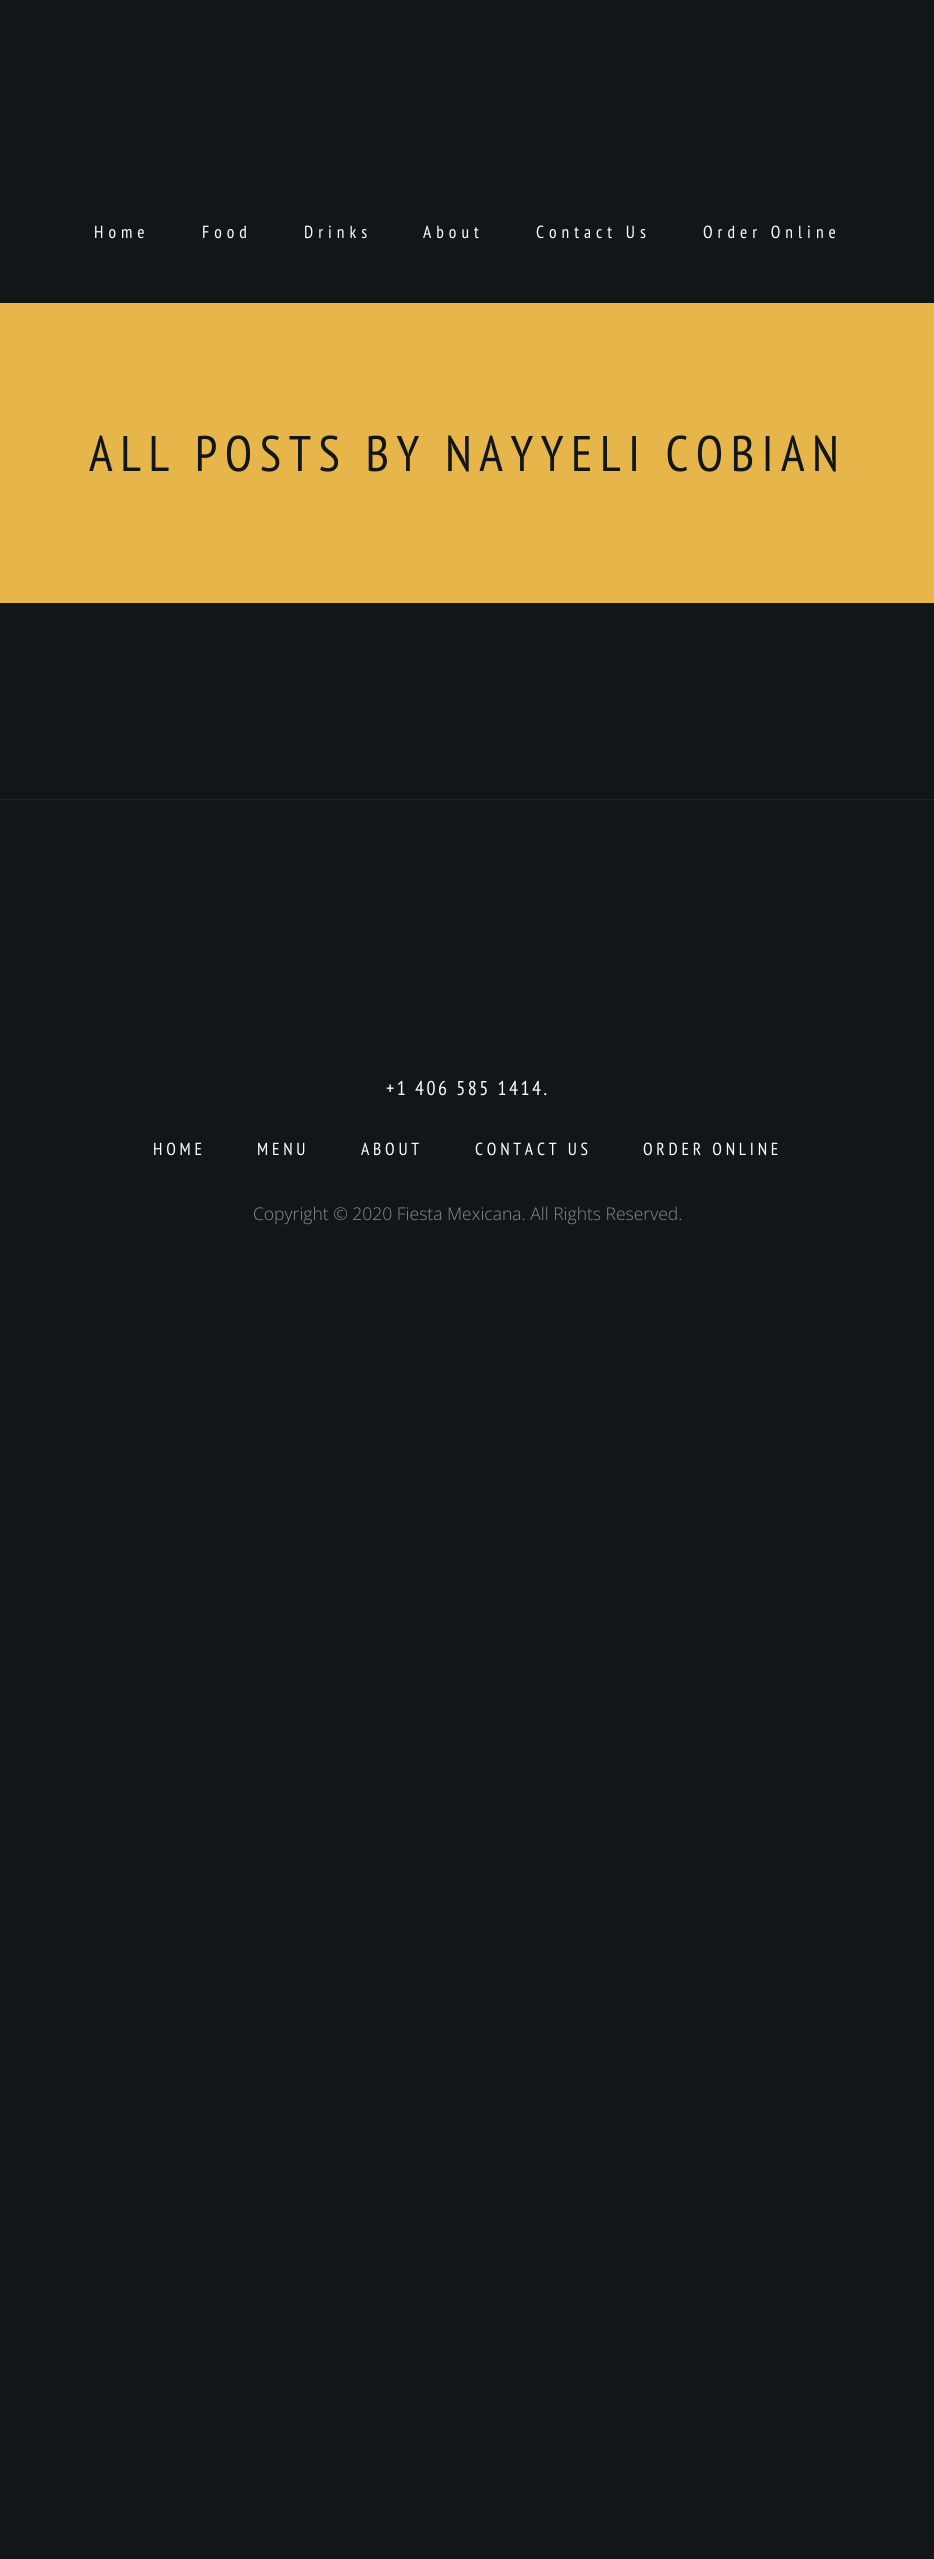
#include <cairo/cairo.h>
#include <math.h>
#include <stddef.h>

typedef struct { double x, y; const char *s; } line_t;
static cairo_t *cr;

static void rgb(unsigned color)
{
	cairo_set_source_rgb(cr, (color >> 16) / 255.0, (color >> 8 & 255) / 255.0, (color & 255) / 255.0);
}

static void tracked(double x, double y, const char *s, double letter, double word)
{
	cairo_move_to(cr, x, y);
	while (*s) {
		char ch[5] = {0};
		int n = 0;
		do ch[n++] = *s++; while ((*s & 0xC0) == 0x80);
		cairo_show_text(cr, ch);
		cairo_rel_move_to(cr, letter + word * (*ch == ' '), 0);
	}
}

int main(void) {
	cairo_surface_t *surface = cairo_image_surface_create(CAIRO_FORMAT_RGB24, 934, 2559);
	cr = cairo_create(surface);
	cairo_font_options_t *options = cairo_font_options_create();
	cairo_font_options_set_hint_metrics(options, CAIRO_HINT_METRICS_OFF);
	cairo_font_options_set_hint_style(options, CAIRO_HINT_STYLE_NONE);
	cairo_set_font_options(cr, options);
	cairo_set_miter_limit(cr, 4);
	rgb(0x121618);
	cairo_paint(cr);
	rgb(0xe7b64b);
	cairo_rectangle(cr, 0, 303, 934, 300);
	cairo_fill(cr);
	rgb(0x1d2326);
	cairo_rectangle(cr, 0, 799, 934, 1);
	cairo_fill(cr);
	cairo_select_font_face(cr, "PT Sans Narrow", CAIRO_FONT_SLANT_NORMAL, CAIRO_FONT_WEIGHT_NORMAL);
	cairo_set_font_size(cr, 17.5);
	rgb(0xffffff);
	{
		static const line_t items[] = {
			{94, 238, "Home"},
			{202, 238, "Food"},
			{304, 238, "Drinks"},
			{423, 238, "About"},
			{536, 238, "Contact Us"},
			{703, 238, "Order Online"},
		};
		for (size_t i = 0; i < sizeof items / sizeof *items; i++) {
			tracked(items[i].x, items[i].y, items[i].s, 5, 0);
		}
	}
	cairo_set_font_size(cr, 50);
	rgb(0x121618);
	tracked(89, 471, "ALL POSTS BY NAYYELI COBIAN", 7.5, 0);
	cairo_set_font_size(cr, 20);
	rgb(0xffffff);
	tracked(386, 1095, "+1 406 585 1414.", 2.5, 0);
	cairo_set_font_size(cr, 17.5);
	{
		static const line_t items[] = {
			{153, 1155, "HOME"},
			{257, 1155, "MENU"},
			{361, 1155, "ABOUT"},
			{475, 1155, "CONTACT US"},
			{643, 1155, "ORDER ONLINE"},
		};
		for (size_t i = 0; i < sizeof items / sizeof *items; i++) {
			tracked(items[i].x, items[i].y, items[i].s, 3.75, 0);
		}
	}
	cairo_select_font_face(cr, "Open Sans Light", CAIRO_FONT_SLANT_NORMAL, CAIRO_FONT_WEIGHT_NORMAL);
	rgb(0x898b8c);
	cairo_move_to(cr, 253, 1220);
	cairo_show_text(cr, "Copyright © 2020 Fiesta Mexicana. All Rights Reserved.");
	cairo_surface_write_to_png(surface, "page.png");
	cairo_font_options_destroy(options);
	cairo_destroy(cr);
	cairo_surface_destroy(surface);
	return 0;
}
